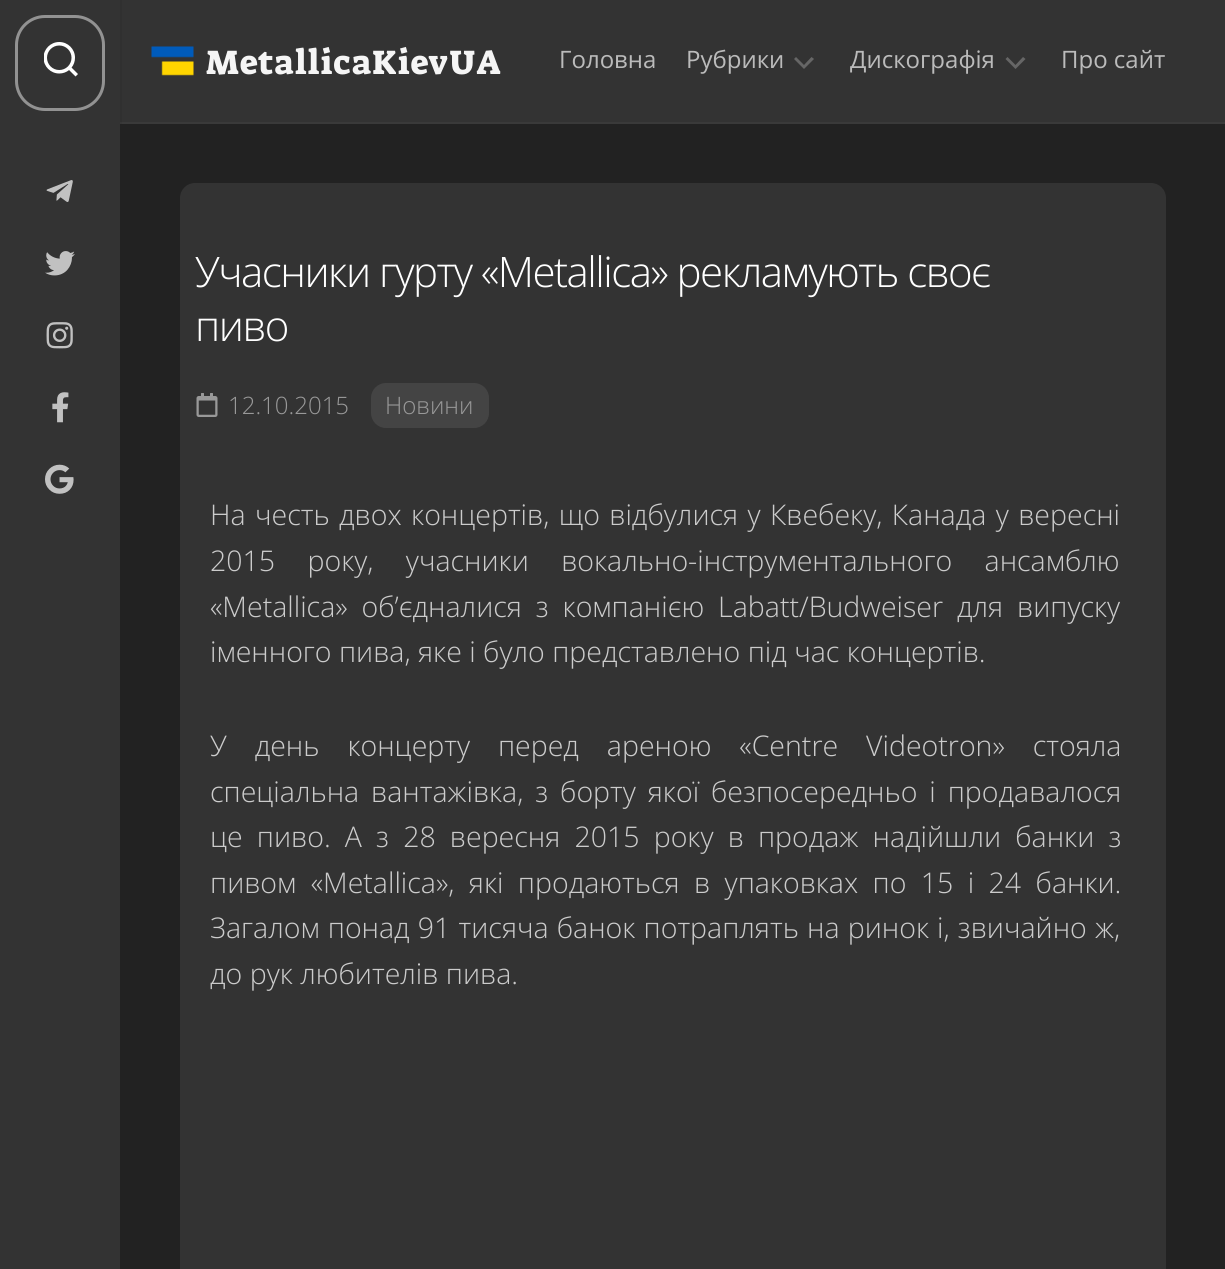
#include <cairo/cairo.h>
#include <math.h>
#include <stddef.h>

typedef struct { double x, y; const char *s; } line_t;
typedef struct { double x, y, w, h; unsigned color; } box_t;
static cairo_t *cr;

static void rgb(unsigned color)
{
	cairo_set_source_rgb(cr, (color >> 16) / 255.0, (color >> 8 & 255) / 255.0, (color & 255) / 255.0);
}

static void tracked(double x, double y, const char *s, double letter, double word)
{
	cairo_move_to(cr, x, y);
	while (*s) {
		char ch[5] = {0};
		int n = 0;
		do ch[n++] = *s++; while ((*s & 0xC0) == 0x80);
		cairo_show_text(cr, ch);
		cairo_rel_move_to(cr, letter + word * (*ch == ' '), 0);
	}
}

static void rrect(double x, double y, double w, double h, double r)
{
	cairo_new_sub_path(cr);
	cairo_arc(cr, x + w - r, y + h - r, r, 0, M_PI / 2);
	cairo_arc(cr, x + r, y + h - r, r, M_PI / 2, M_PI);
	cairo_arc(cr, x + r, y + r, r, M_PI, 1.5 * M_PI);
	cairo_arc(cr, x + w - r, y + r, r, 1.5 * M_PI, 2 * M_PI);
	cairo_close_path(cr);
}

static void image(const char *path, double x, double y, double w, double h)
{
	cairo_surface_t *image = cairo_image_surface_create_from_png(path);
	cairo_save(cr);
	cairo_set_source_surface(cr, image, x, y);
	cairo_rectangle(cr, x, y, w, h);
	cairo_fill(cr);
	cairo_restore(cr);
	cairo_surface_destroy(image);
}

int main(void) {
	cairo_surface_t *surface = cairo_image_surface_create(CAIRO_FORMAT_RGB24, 1225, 1269);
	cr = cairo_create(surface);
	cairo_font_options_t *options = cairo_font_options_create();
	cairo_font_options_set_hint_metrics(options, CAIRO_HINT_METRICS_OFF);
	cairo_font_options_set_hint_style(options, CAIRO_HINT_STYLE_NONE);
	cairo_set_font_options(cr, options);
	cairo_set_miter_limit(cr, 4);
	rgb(0x222222);
	cairo_paint(cr);
	{
		static const box_t items[] = {
			{122, 0, 1103, 122, 0x333333},
			{120, 0, 2, 123, 0x303030},
			{0, 0, 120, 1269, 0x333333},
		};
		for (size_t i = 0; i < sizeof items / sizeof *items; i++) {
			rgb(items[i].color);
			cairo_rectangle(cr, items[i].x, items[i].y, items[i].w, items[i].h);
			cairo_fill(cr);
		}
	}
	rrect(16.5, 16.5, 87, 93, 28.5);
	rgb(0x929292);
	cairo_set_line_width(cr, 3);
	cairo_stroke(cr);
	image("img/1.png", 44, 42, 34, 35);
	image("img/2.png", 46, 180, 27, 22);
	image("img/3.png", 45, 251, 30, 25);
	image("img/4.png", 46, 322, 27, 27);
	image("img/5.png", 52, 392, 17, 31);
	image("img/6.png", 45, 464, 29, 30);
	rgb(0x3a3a3a);
	cairo_rectangle(cr, 120, 122, 1105, 2);
	cairo_fill(cr);
	rgb(0x373737);
	cairo_rectangle(cr, 120, 122, 2, 2);
	cairo_fill(cr);
	image("img/7.png", 151, 46, 43, 30);
	rgb(0x666666);
	cairo_set_fill_rule(cr, CAIRO_FILL_RULE_EVEN_ODD);
	cairo_new_path(cr);
	cairo_move_to(cr, 804, 65);
	cairo_line_to(cr, 811.5, 57);
	cairo_line_to(cr, 814, 59);
	cairo_line_to(cr, 804, 69);
	cairo_line_to(cr, 794, 59);
	cairo_line_to(cr, 796, 57);
	cairo_close_path(cr);
	cairo_fill(cr);
	cairo_new_path(cr);
	cairo_move_to(cr, 1015.5, 65);
	cairo_line_to(cr, 1023, 57);
	cairo_line_to(cr, 1025.5, 59);
	cairo_line_to(cr, 1015.5, 69);
	cairo_line_to(cr, 1005.5, 59);
	cairo_line_to(cr, 1007.5, 57);
	cairo_close_path(cr);
	cairo_fill(cr);
	rgb(0x333333);
	rrect(180, 183, 986, 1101, 15);
	cairo_fill(cr);
	image("img/8.png", 196, 393, 22, 24);
	rgb(0x444444);
	rrect(371, 383, 118, 45, 15);
	cairo_fill(cr);
	cairo_select_font_face(cr, "Suez One", CAIRO_FONT_SLANT_NORMAL, CAIRO_FONT_WEIGHT_NORMAL);
	cairo_set_font_size(cr, 34.5);
	rgb(0xf5f5f5);
	tracked(206, 74, "MetallicaKievUA", 1.1, 0);
	cairo_select_font_face(cr, "Open Sans", CAIRO_FONT_SLANT_NORMAL, CAIRO_FONT_WEIGHT_NORMAL);
	cairo_set_font_size(cr, 24);
	rgb(0xbbbbbb);
	{
		static const line_t items[] = {
			{559, 68, "Головна"},
			{686, 68, "Рубрики"},
			{850, 68, "Дискографія"},
			{1061, 68, "Про сайт"},
		};
		for (size_t i = 0; i < sizeof items / sizeof *items; i++) {
			cairo_move_to(cr, items[i].x, items[i].y);
			cairo_show_text(cr, items[i].s);
		}
	}
	cairo_select_font_face(cr, "Open Sans Light", CAIRO_FONT_SLANT_NORMAL, CAIRO_FONT_WEIGHT_NORMAL);
	cairo_set_font_size(cr, 42);
	rgb(0xffffff);
	tracked(195, 287, "Учасники гурту «Metallica» рекламують своє", -1.5, 0);
	tracked(195, 341, "пиво", -1.5, 0);
	cairo_set_font_size(cr, 24);
	rgb(0x999999);
	cairo_move_to(cr, 228, 414);
	cairo_show_text(cr, "12.10.2015");
	cairo_move_to(cr, 385, 414);
	cairo_show_text(cr, "Новини");
	cairo_set_font_size(cr, 28.5);
	rgb(0xcccccc);
	tracked(210, 525, "На честь двох концертів, що відбулися у Квебеку, Канада у вересні", 0, 2);
	tracked(210, 571, "2015 року, учасники вокально-інструментального ансамблю", 0, 25);
	tracked(210, 617, "«Metallica» об’єдналися з компанією Labatt/Budweiser для випуску", 0, 6.5);
	cairo_move_to(cr, 210, 662);
	cairo_show_text(cr, "іменного пива, яке і було представлено під час концертів.");
	tracked(210, 756, "У день концерту перед ареною «Centre Videotron» стояла", 0, 20.5);
	tracked(210, 802, "спеціальна вантажівка, з борту якої безпосередньо і продавалося", 0, 4.5);
	tracked(210, 847, "це пиво. А з 28 вересня 2015 року в продаж надійшли банки з", 0, 6.75);
	tracked(210, 893, "пивом «Metallica», які продаються в упаковках по 15 і 24 банки.", 0, 7);
	tracked(210, 938, "Загалом понад 91 тисяча банок потраплять на ринок і, звичайно ж,", 0, 0.75);
	cairo_move_to(cr, 210, 984);
	cairo_show_text(cr, "до рук любителів пива.");
	cairo_surface_write_to_png(surface, "page.png");
	cairo_font_options_destroy(options);
	cairo_destroy(cr);
	cairo_surface_destroy(surface);
	return 0;
}
